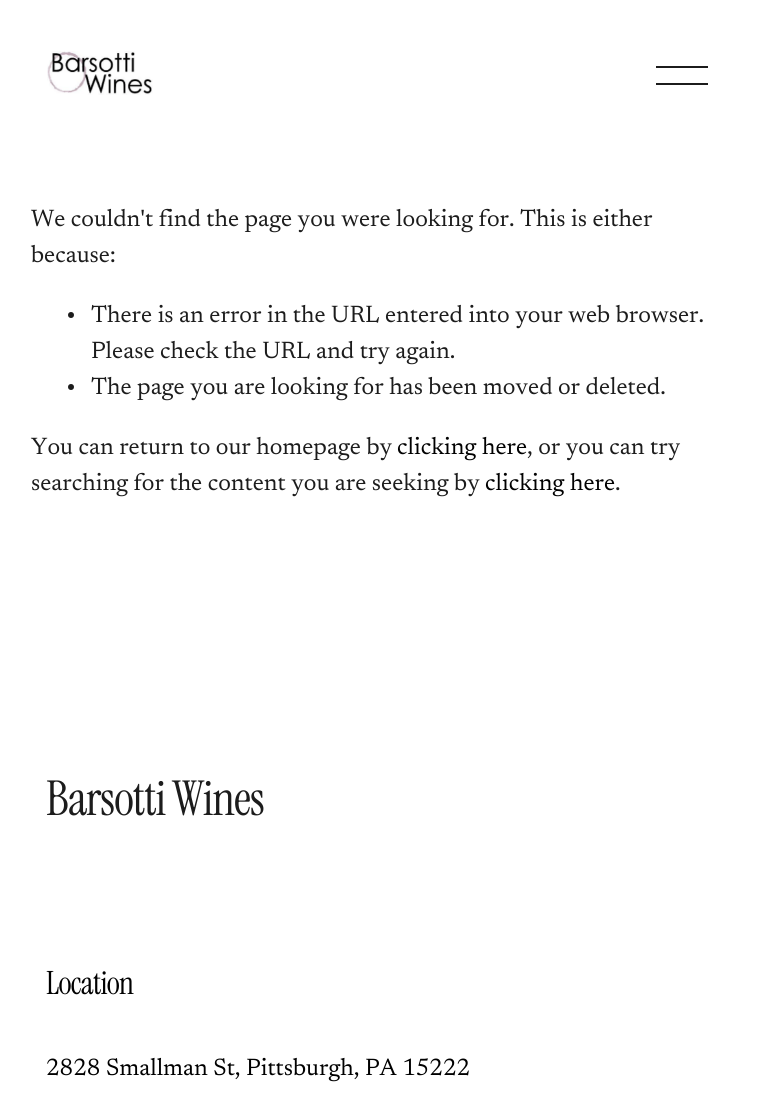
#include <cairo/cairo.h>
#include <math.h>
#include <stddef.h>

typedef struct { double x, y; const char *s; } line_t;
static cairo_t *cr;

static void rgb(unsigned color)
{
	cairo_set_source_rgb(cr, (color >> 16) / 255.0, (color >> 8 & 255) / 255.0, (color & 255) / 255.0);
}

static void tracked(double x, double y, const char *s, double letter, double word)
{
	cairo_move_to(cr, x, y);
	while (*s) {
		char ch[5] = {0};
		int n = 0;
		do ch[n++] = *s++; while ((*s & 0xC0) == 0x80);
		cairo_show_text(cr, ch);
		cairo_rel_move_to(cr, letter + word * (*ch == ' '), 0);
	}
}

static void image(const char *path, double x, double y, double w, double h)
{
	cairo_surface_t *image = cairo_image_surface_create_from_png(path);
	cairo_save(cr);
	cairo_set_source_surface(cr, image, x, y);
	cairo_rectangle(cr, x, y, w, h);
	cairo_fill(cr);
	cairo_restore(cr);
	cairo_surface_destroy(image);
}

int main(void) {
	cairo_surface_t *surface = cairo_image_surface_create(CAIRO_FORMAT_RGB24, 763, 1106);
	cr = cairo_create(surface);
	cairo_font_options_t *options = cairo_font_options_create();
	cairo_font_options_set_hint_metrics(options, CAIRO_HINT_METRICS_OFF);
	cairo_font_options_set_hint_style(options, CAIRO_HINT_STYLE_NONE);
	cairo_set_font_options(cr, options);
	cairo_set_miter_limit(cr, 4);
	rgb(0xffffff);
	cairo_paint(cr);
	image("img/1.png", 47, 51, 106, 44);
	rgb(0x1c1c1c);
	cairo_rectangle(cr, 656, 66, 52, 2);
	cairo_fill(cr);
	cairo_rectangle(cr, 656, 83, 52, 2);
	cairo_fill(cr);
	cairo_arc(cr, 71, 315, 3, 0, 2 * M_PI);
	cairo_fill(cr);
	cairo_arc(cr, 71, 387, 3, 0, 2 * M_PI);
	cairo_fill(cr);
	cairo_select_font_face(cr, "Newsreader", CAIRO_FONT_SLANT_NORMAL, CAIRO_FONT_WEIGHT_NORMAL);
	cairo_set_font_size(cr, 24);
	{
		static const line_t items[] = {
			{31, 226, "We couldn't find the page you were looking for. This is either"},
			{31, 262, "because:"},
			{91, 322, "There is an error in the URL entered into your web browser."},
			{91, 358, "Please check the URL and try again."},
			{91, 394, "The page you are looking for has been moved or deleted."},
			{31, 454, "You can return to our homepage by"},
		};
		for (size_t i = 0; i < sizeof items / sizeof *items; i++) {
			cairo_move_to(cr, items[i].x, items[i].y);
			cairo_show_text(cr, items[i].s);
		}
	}
	rgb(0x000000);
	cairo_move_to(cr, 397, 454);
	cairo_show_text(cr, "clicking here");
	rgb(0x1c1c1c);
	cairo_move_to(cr, 527, 454);
	cairo_show_text(cr, ", or you can try");
	cairo_move_to(cr, 31, 490);
	cairo_show_text(cr, "searching for the content you are seeking by");
	rgb(0x000000);
	cairo_move_to(cr, 485, 490);
	cairo_show_text(cr, "clicking here");
	rgb(0x1c1c1c);
	cairo_move_to(cr, 615, 490);
	cairo_show_text(cr, ".");
	cairo_select_font_face(cr, "Instrument Serif", CAIRO_FONT_SLANT_NORMAL, CAIRO_FONT_WEIGHT_NORMAL);
	cairo_set_font_size(cr, 48);
	tracked(46, 815, "Barsotti Wines", -1, 0);
	cairo_set_font_size(cr, 32);
	rgb(0x000000);
	tracked(46, 994, "Location", -0.75, 0);
	cairo_select_font_face(cr, "Newsreader", CAIRO_FONT_SLANT_NORMAL, CAIRO_FONT_WEIGHT_NORMAL);
	cairo_set_font_size(cr, 24);
	cairo_move_to(cr, 46, 1075);
	cairo_show_text(cr, "2828 Smallman St, Pittsburgh, PA 15222");
	cairo_surface_write_to_png(surface, "page.png");
	cairo_font_options_destroy(options);
	cairo_destroy(cr);
	cairo_surface_destroy(surface);
	return 0;
}
